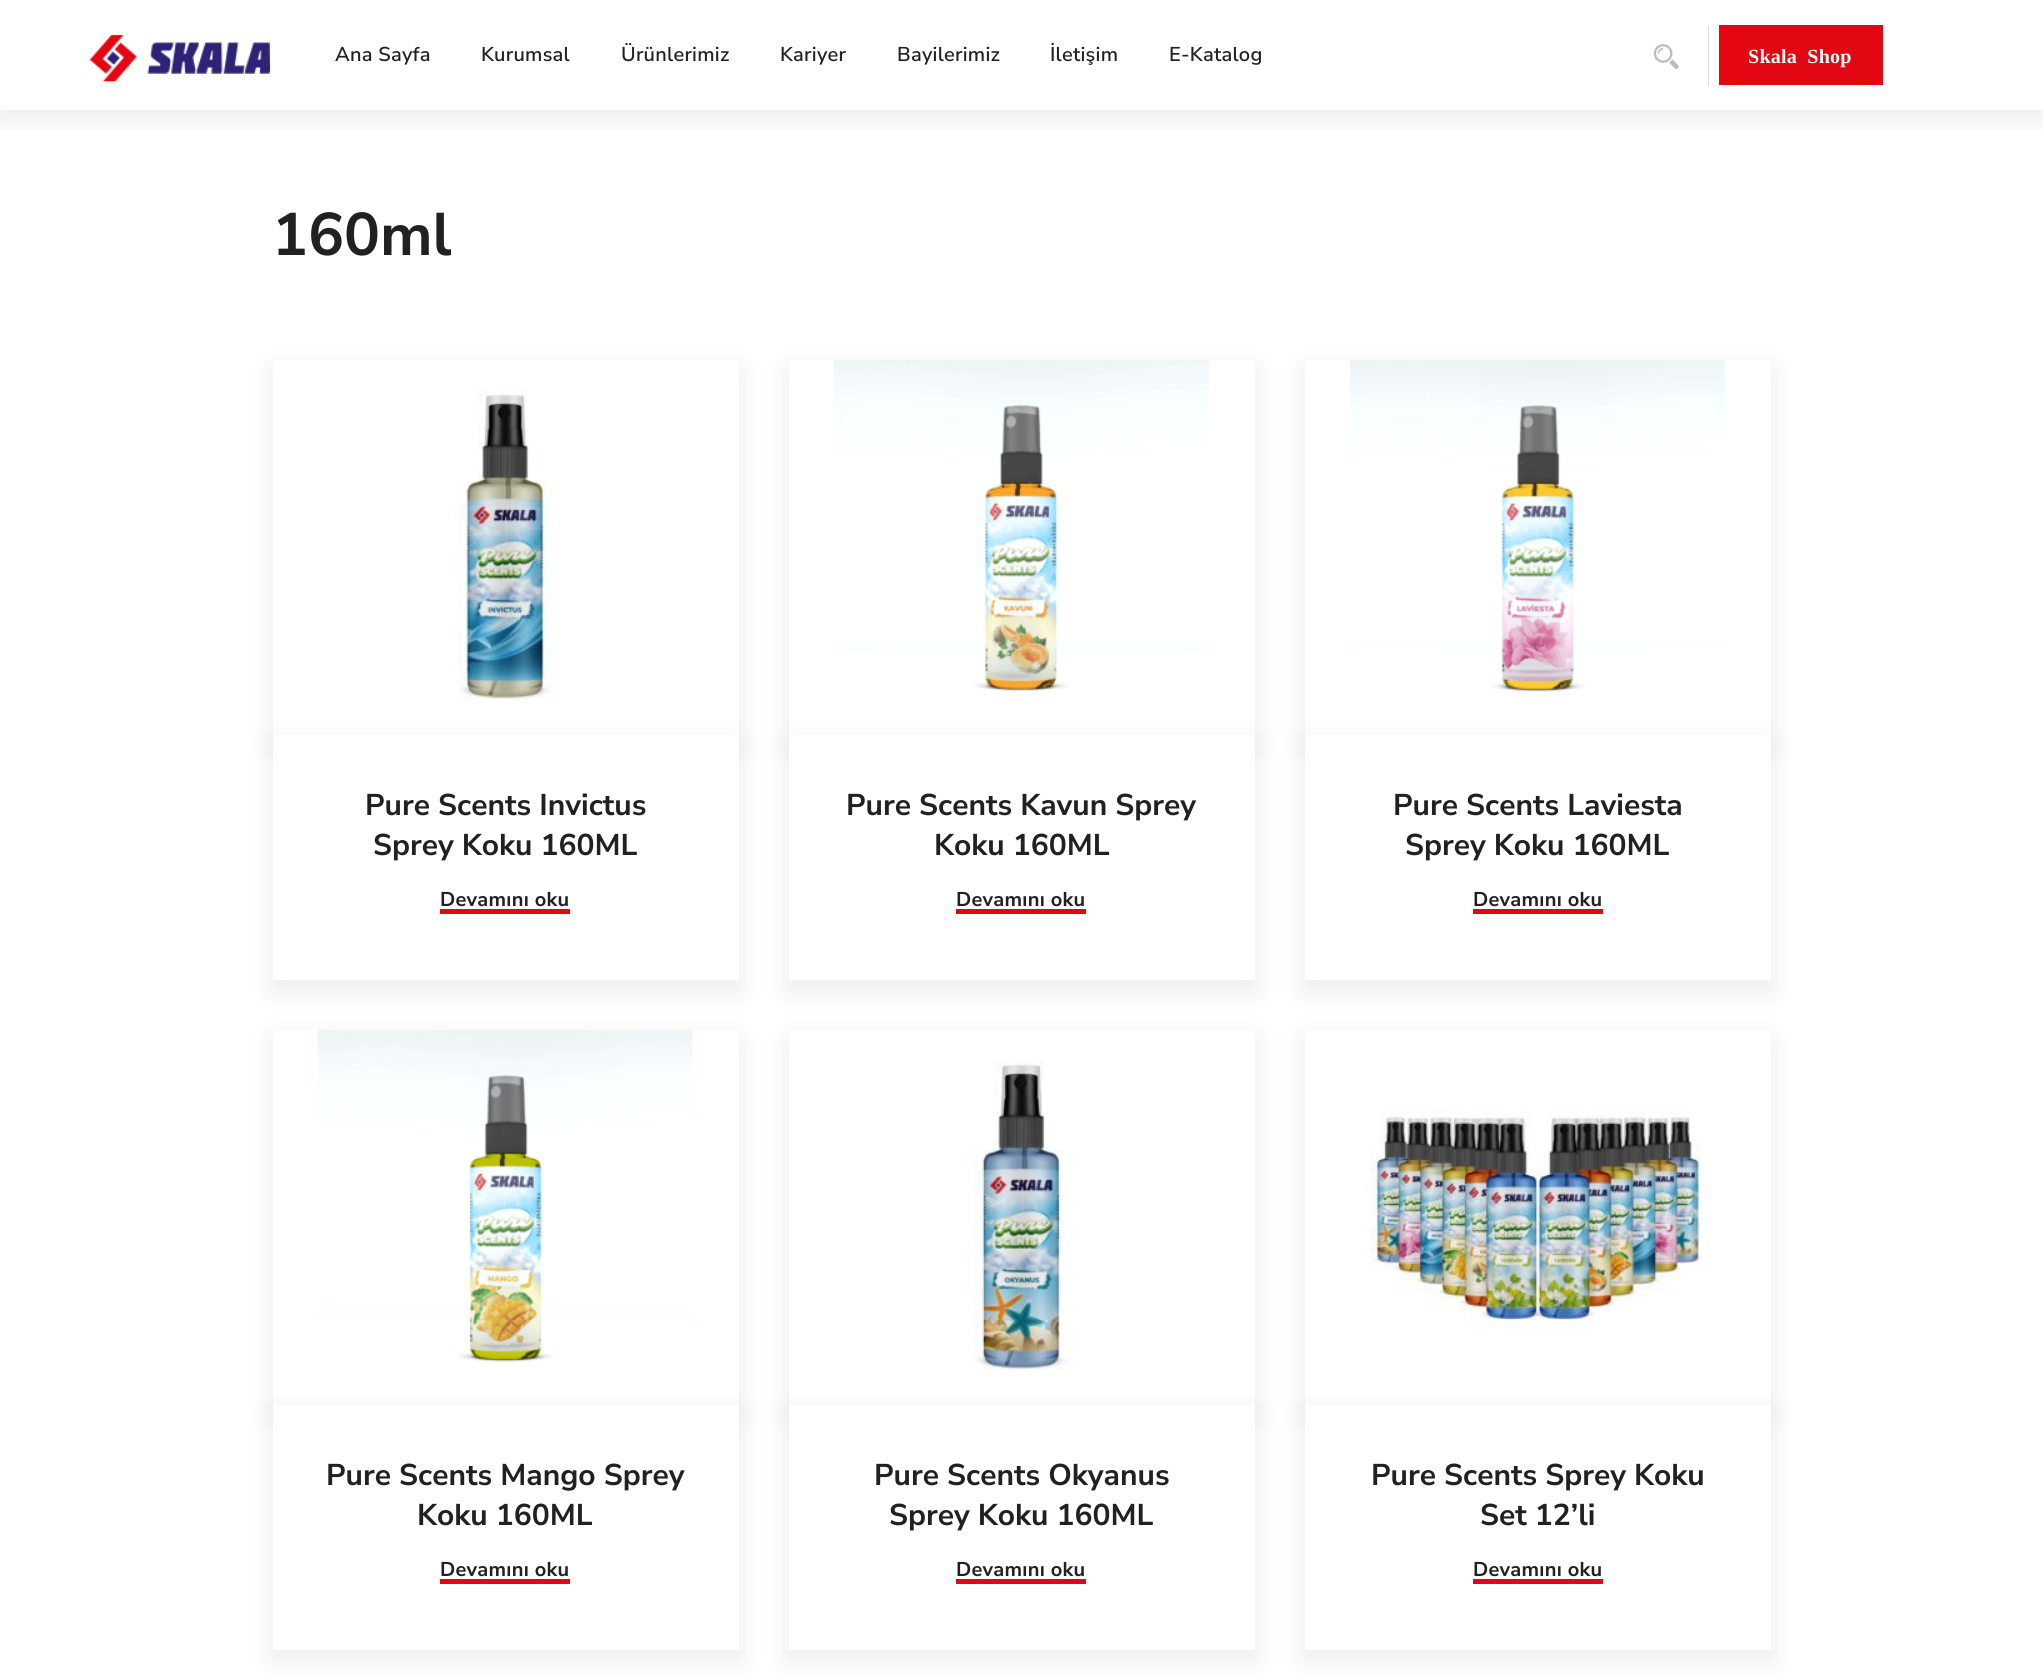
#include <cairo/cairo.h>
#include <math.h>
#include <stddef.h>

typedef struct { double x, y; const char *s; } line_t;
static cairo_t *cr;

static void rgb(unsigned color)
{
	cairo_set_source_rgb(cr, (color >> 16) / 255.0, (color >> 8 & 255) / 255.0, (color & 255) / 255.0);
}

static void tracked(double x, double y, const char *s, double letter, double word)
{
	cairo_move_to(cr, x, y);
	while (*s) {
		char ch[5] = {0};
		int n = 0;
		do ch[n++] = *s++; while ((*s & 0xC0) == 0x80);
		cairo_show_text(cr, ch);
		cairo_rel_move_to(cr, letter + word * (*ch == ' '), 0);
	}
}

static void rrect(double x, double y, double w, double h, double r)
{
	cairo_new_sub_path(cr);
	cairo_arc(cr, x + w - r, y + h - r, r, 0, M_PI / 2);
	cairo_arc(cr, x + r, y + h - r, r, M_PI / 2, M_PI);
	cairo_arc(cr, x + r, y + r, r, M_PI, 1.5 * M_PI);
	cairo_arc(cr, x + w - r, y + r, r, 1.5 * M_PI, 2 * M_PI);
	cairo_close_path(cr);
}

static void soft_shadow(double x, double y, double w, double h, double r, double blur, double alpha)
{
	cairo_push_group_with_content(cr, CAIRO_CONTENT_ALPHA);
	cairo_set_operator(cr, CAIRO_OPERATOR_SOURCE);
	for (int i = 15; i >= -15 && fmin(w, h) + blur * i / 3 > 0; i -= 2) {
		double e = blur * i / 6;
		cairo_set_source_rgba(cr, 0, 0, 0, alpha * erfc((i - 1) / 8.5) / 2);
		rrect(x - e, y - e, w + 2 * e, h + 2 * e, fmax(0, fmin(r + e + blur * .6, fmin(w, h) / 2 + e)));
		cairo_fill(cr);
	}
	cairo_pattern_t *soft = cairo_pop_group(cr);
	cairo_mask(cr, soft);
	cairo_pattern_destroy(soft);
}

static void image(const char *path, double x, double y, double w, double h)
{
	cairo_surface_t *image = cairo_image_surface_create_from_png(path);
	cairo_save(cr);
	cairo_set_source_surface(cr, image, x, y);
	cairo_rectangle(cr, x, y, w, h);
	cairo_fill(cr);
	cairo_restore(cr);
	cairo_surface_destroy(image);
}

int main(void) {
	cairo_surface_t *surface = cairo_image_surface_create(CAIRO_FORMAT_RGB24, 2043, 1677);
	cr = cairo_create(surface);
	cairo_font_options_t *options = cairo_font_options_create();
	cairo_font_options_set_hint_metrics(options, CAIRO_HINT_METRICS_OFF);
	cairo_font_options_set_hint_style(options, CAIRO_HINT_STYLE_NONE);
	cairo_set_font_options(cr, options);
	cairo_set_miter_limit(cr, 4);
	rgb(0xffffff);
	cairo_paint(cr);
	cairo_save(cr);
	cairo_rectangle(cr, 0, 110, 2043, 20);
	cairo_clip(cr);
	rgb(0x000000);
	soft_shadow(0, 10, 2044, 110, 0, 15, 0.08);
	cairo_restore(cr);
	image("img/1.png", 90, 34, 180, 48);
	image("img/2.png", 1653, 44, 26, 25);
	rgb(0xe0e0e0);
	cairo_rectangle(cr, 1708, 26, 1, 60);
	cairo_fill(cr);
	rgb(0xe30613);
	cairo_rectangle(cr, 1719, 25, 164, 60);
	cairo_fill(cr);
	cairo_save(cr);
	cairo_set_fill_rule(cr, CAIRO_FILL_RULE_EVEN_ODD);
	cairo_new_path(cr);
	cairo_move_to(cr, 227, 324);
	cairo_line_to(cr, 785, 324);
	cairo_line_to(cr, 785, 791);
	cairo_line_to(cr, 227, 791);
	cairo_close_path(cr);
	cairo_move_to(cr, 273, 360);
	cairo_line_to(cr, 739, 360);
	cairo_line_to(cr, 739, 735);
	cairo_line_to(cr, 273, 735);
	cairo_close_path(cr);
	cairo_clip(cr);
	rgb(0x000000);
	soft_shadow(273, 370, 466, 375, 0, 15, 0.08);
	cairo_restore(cr);
	image("img/3.png", 457, 390, 98, 310);
	rgb(0x000000);
	soft_shadow(273, 745, 466, 245, 0, 15, 0.08);
	rgb(0xffffff);
	cairo_rectangle(cr, 273, 735, 466, 245);
	cairo_fill(cr);
	rgb(0xe30613);
	cairo_rectangle(cr, 440, 909, 130, 5);
	cairo_fill(cr);
	cairo_save(cr);
	cairo_set_fill_rule(cr, CAIRO_FILL_RULE_EVEN_ODD);
	cairo_new_path(cr);
	cairo_move_to(cr, 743, 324);
	cairo_line_to(cr, 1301, 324);
	cairo_line_to(cr, 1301, 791);
	cairo_line_to(cr, 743, 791);
	cairo_close_path(cr);
	cairo_move_to(cr, 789, 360);
	cairo_line_to(cr, 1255, 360);
	cairo_line_to(cr, 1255, 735);
	cairo_line_to(cr, 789, 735);
	cairo_close_path(cr);
	cairo_clip(cr);
	rgb(0x000000);
	soft_shadow(789, 370, 466, 375, 0, 15, 0.08);
	cairo_restore(cr);
	image("img/4.png", 833, 360, 376, 332);
	rgb(0x000000);
	soft_shadow(789, 745, 466, 245, 0, 15, 0.08);
	rgb(0xffffff);
	cairo_rectangle(cr, 789, 735, 466, 245);
	cairo_fill(cr);
	rgb(0xe30613);
	cairo_rectangle(cr, 956, 909, 130, 5);
	cairo_fill(cr);
	cairo_save(cr);
	cairo_set_fill_rule(cr, CAIRO_FILL_RULE_EVEN_ODD);
	cairo_new_path(cr);
	cairo_move_to(cr, 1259, 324);
	cairo_line_to(cr, 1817, 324);
	cairo_line_to(cr, 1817, 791);
	cairo_line_to(cr, 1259, 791);
	cairo_close_path(cr);
	cairo_move_to(cr, 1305, 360);
	cairo_line_to(cr, 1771, 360);
	cairo_line_to(cr, 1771, 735);
	cairo_line_to(cr, 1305, 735);
	cairo_close_path(cr);
	cairo_clip(cr);
	rgb(0x000000);
	soft_shadow(1305, 370, 466, 375, 0, 15, 0.08);
	cairo_restore(cr);
	image("img/5.png", 1350, 360, 375, 332);
	rgb(0x000000);
	soft_shadow(1305, 745, 466, 245, 0, 15, 0.08);
	rgb(0xffffff);
	cairo_rectangle(cr, 1305, 735, 466, 245);
	cairo_fill(cr);
	rgb(0xe30613);
	cairo_rectangle(cr, 1473, 909, 130, 5);
	cairo_fill(cr);
	cairo_save(cr);
	cairo_set_fill_rule(cr, CAIRO_FILL_RULE_EVEN_ODD);
	cairo_new_path(cr);
	cairo_move_to(cr, 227, 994);
	cairo_line_to(cr, 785, 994);
	cairo_line_to(cr, 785, 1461);
	cairo_line_to(cr, 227, 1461);
	cairo_close_path(cr);
	cairo_move_to(cr, 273, 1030);
	cairo_line_to(cr, 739, 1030);
	cairo_line_to(cr, 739, 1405);
	cairo_line_to(cr, 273, 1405);
	cairo_close_path(cr);
	cairo_clip(cr);
	rgb(0x000000);
	soft_shadow(273, 1040, 466, 375, 0, 15, 0.08);
	cairo_restore(cr);
	image("img/6.png", 317, 1030, 376, 333);
	rgb(0x000000);
	soft_shadow(273, 1415, 466, 245, 0, 15, 0.08);
	rgb(0xffffff);
	cairo_rectangle(cr, 273, 1405, 466, 245);
	cairo_fill(cr);
	rgb(0xe30613);
	cairo_rectangle(cr, 440, 1579, 130, 5);
	cairo_fill(cr);
	cairo_save(cr);
	cairo_set_fill_rule(cr, CAIRO_FILL_RULE_EVEN_ODD);
	cairo_new_path(cr);
	cairo_move_to(cr, 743, 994);
	cairo_line_to(cr, 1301, 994);
	cairo_line_to(cr, 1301, 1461);
	cairo_line_to(cr, 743, 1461);
	cairo_close_path(cr);
	cairo_move_to(cr, 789, 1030);
	cairo_line_to(cr, 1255, 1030);
	cairo_line_to(cr, 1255, 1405);
	cairo_line_to(cr, 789, 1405);
	cairo_close_path(cr);
	cairo_clip(cr);
	rgb(0x000000);
	soft_shadow(789, 1040, 466, 375, 0, 15, 0.08);
	cairo_restore(cr);
	image("img/7.png", 973, 1060, 101, 311);
	rgb(0x000000);
	soft_shadow(789, 1415, 466, 245, 0, 15, 0.08);
	rgb(0xffffff);
	cairo_rectangle(cr, 789, 1405, 466, 245);
	cairo_fill(cr);
	rgb(0xe30613);
	cairo_rectangle(cr, 956, 1579, 130, 5);
	cairo_fill(cr);
	cairo_save(cr);
	cairo_set_fill_rule(cr, CAIRO_FILL_RULE_EVEN_ODD);
	cairo_new_path(cr);
	cairo_move_to(cr, 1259, 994);
	cairo_line_to(cr, 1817, 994);
	cairo_line_to(cr, 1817, 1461);
	cairo_line_to(cr, 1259, 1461);
	cairo_close_path(cr);
	cairo_move_to(cr, 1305, 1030);
	cairo_line_to(cr, 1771, 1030);
	cairo_line_to(cr, 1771, 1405);
	cairo_line_to(cr, 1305, 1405);
	cairo_close_path(cr);
	cairo_clip(cr);
	rgb(0x000000);
	soft_shadow(1305, 1040, 466, 375, 0, 15, 0.08);
	cairo_restore(cr);
	image("img/8.png", 1369, 1110, 341, 221);
	rgb(0x000000);
	soft_shadow(1305, 1415, 466, 245, 0, 15, 0.08);
	rgb(0xffffff);
	cairo_rectangle(cr, 1305, 1405, 466, 245);
	cairo_fill(cr);
	rgb(0xe30613);
	cairo_rectangle(cr, 1473, 1579, 130, 5);
	cairo_fill(cr);
	cairo_select_font_face(cr, "Nunito Sans SemiBold", CAIRO_FONT_SLANT_NORMAL, CAIRO_FONT_WEIGHT_NORMAL);
	cairo_set_font_size(cr, 20);
	rgb(0x212121);
	{
		static const line_t items[] = {
			{335, 61, "Ana Sayfa"},
			{481, 61, "Kurumsal"},
			{621, 61, "Ürünlerimiz"},
			{780, 61, "Kariyer"},
			{897, 61, "Bayilerimiz"},
			{1050, 61, "İletişim"},
			{1169, 61, "E-Katalog"},
		};
		for (size_t i = 0; i < sizeof items / sizeof *items; i++) {
			tracked(items[i].x, items[i].y, items[i].s, 0.25, 0);
		}
	}
	cairo_select_font_face(cr, "Liberation Serif", CAIRO_FONT_SLANT_NORMAL, CAIRO_FONT_WEIGHT_BOLD);
	rgb(0xffffff);
	tracked(1748, 63, "Skala Shop", 0.25, 5);
	cairo_select_font_face(cr, "Nunito Sans", CAIRO_FONT_SLANT_NORMAL, CAIRO_FONT_WEIGHT_BOLD);
	cairo_set_font_size(cr, 60);
	rgb(0x212121);
	cairo_move_to(cr, 272, 255);
	cairo_show_text(cr, "160ml");
	cairo_set_font_size(cr, 30);
	cairo_move_to(cr, 365, 815);
	cairo_show_text(cr, "Pure Scents Invictus");
	cairo_move_to(cr, 373, 855);
	cairo_show_text(cr, "Sprey Koku 160ML");
	cairo_set_font_size(cr, 20);
	tracked(440, 906, "Devamını oku", 0.25, 0);
	cairo_set_font_size(cr, 30);
	cairo_move_to(cr, 846, 815);
	cairo_show_text(cr, "Pure Scents Kavun Sprey");
	cairo_move_to(cr, 934, 855);
	cairo_show_text(cr, "Koku 160ML");
	cairo_set_font_size(cr, 20);
	tracked(956, 906, "Devamını oku", 0.25, 0);
	cairo_set_font_size(cr, 30);
	cairo_move_to(cr, 1393, 815);
	cairo_show_text(cr, "Pure Scents Laviesta");
	cairo_move_to(cr, 1405, 855);
	cairo_show_text(cr, "Sprey Koku 160ML");
	cairo_set_font_size(cr, 20);
	tracked(1473, 906, "Devamını oku", 0.25, 0);
	cairo_set_font_size(cr, 30);
	cairo_move_to(cr, 326, 1485);
	cairo_show_text(cr, "Pure Scents Mango Sprey");
	cairo_move_to(cr, 417, 1525);
	cairo_show_text(cr, "Koku 160ML");
	cairo_set_font_size(cr, 20);
	tracked(440, 1576, "Devamını oku", 0.25, 0);
	cairo_set_font_size(cr, 30);
	cairo_move_to(cr, 874, 1485);
	cairo_show_text(cr, "Pure Scents Okyanus");
	cairo_move_to(cr, 889, 1525);
	cairo_show_text(cr, "Sprey Koku 160ML");
	cairo_set_font_size(cr, 20);
	tracked(956, 1576, "Devamını oku", 0.25, 0);
	cairo_set_font_size(cr, 30);
	cairo_move_to(cr, 1371, 1485);
	cairo_show_text(cr, "Pure Scents Sprey Koku");
	cairo_move_to(cr, 1480, 1525);
	cairo_show_text(cr, "Set 12’li");
	cairo_set_font_size(cr, 20);
	tracked(1473, 1576, "Devamını oku", 0.25, 0);
	cairo_surface_write_to_png(surface, "page.png");
	cairo_font_options_destroy(options);
	cairo_destroy(cr);
	cairo_surface_destroy(surface);
	return 0;
}
